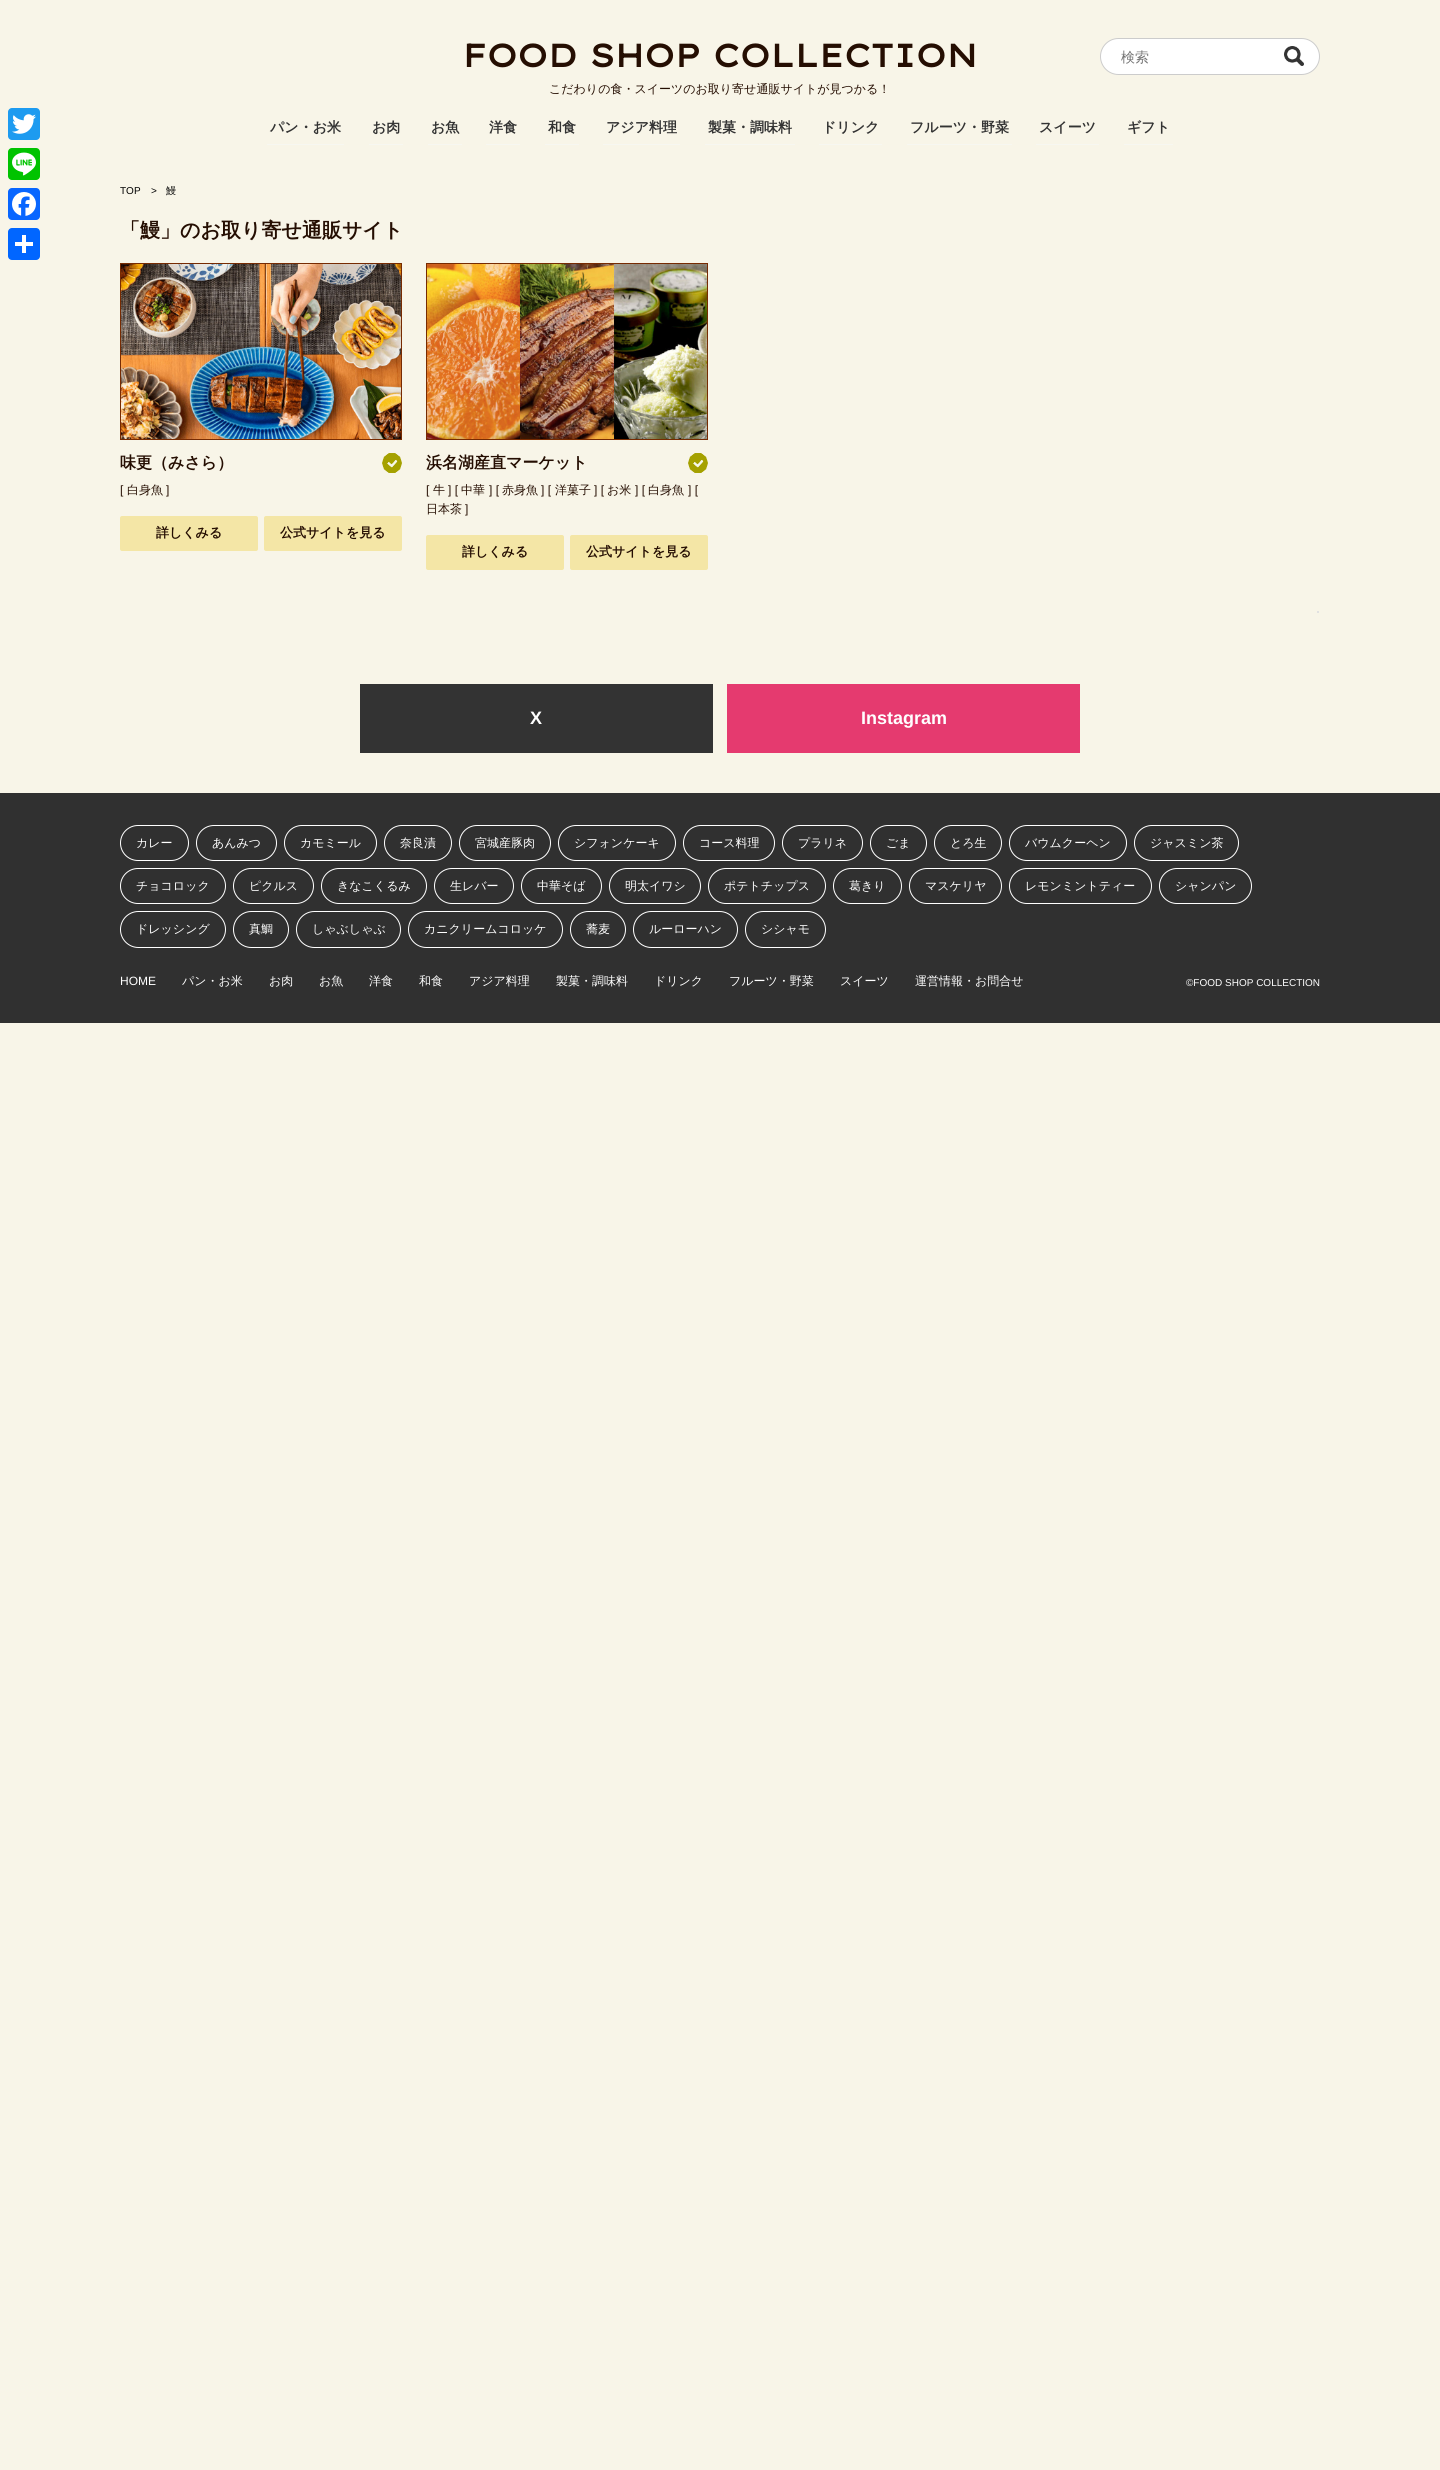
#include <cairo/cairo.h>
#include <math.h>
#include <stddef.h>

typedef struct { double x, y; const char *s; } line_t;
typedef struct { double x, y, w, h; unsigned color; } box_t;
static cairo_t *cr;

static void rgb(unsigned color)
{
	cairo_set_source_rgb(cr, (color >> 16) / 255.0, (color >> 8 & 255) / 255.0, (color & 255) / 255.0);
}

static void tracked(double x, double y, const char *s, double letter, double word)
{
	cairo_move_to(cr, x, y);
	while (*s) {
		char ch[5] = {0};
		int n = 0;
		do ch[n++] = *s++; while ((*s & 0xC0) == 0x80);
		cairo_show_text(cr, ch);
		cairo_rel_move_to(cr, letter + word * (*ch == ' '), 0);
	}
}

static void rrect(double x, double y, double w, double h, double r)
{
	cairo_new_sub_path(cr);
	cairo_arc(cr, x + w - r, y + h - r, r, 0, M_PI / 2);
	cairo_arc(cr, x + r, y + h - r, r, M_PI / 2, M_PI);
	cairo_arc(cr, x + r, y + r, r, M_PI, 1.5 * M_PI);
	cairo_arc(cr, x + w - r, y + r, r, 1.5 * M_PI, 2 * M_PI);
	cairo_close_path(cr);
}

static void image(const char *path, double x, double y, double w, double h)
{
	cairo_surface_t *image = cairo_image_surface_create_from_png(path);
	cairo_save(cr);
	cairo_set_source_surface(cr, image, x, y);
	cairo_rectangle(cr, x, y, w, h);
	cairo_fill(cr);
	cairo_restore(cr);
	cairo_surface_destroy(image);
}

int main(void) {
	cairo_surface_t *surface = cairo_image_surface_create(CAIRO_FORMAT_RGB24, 1440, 2470);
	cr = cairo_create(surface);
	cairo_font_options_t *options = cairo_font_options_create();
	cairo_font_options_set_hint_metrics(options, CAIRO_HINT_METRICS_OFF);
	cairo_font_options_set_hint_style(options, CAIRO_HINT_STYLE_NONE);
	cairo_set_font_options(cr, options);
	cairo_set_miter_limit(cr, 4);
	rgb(0xf8f5e8);
	cairo_paint(cr);
	rgb(0xffffff);
	rrect(1100.5, 38.5, 219, 36, 18);
	cairo_fill_preserve(cr);
	rgb(0xcccccc);
	cairo_set_line_width(cr, 1);
	cairo_stroke(cr);
	image("img/1.png", 1284, 46, 20, 20);
	{
		static const box_t items[] = {
			{267, 144, 77, 1, 0xf7f7f1},
			{369, 144, 34, 1, 0xf7f7f1},
			{428, 144, 34, 1, 0xf7f7f1},
			{486, 144, 34, 1, 0xf7f7f1},
			{545, 144, 34, 1, 0xf7f7f1},
			{603, 144, 77, 1, 0xf7f7f1},
			{705, 144, 90, 1, 0xf7f7f1},
			{819, 144, 63, 1, 0xf7f7f1},
			{907, 144, 105, 1, 0xf7f7f1},
			{1036, 144, 63, 1, 0xf7f7f1},
			{1124, 144, 49, 1, 0xf7f7f1},
		};
		for (size_t i = 0; i < sizeof items / sizeof *items; i++) {
			rgb(items[i].color);
			cairo_rectangle(cr, items[i].x, items[i].y, items[i].w, items[i].h);
			cairo_fill(cr);
		}
	}
	rgb(0x1d9bf0);
	rrect(8, 108, 32, 32, 4);
	cairo_fill(cr);
	image("img/2.png", 12, 114, 24, 20);
	rgb(0x00c300);
	rrect(8, 148, 32, 32, 4);
	cairo_fill(cr);
	image("img/3.png", 12, 152, 24, 24);
	rgb(0x0866ff);
	rrect(8, 188, 32, 32, 4);
	cairo_fill(cr);
	image("img/4.png", 12, 192, 24, 24);
	rgb(0x0166ff);
	rrect(8, 228, 32, 32, 4);
	cairo_fill(cr);
	rgb(0xffffff);
	cairo_rectangle(cr, 22, 235, 4, 18);
	cairo_fill(cr);
	cairo_rectangle(cr, 15, 242, 18, 4);
	cairo_fill(cr);
	cairo_rectangle(cr, 120.5, 263.5, 281, 176);
	rgb(0x772b02);
	cairo_stroke(cr);
	image("img/5.png", 121, 264, 280, 175);
	image("img/6.png", 382, 453, 20, 20);
	rgb(0xf4e6a6);
	rrect(120, 516, 138, 35, 2);
	cairo_fill(cr);
	rrect(264, 516, 138, 35, 2);
	cairo_fill(cr);
	cairo_rectangle(cr, 426.5, 263.5, 281, 176);
	rgb(0x772b02);
	cairo_stroke(cr);
	image("img/7.png", 427, 264, 280, 175);
	image("img/8.png", 688, 453, 20, 20);
	rgb(0xf4e6a6);
	rrect(426, 535, 138, 35, 2);
	cairo_fill(cr);
	rrect(570, 535, 138, 35, 2);
	cairo_fill(cr);
	{
		static const box_t items[] = {
			{1317, 611, 2, 2, 0xe1e1e1},
			{360, 684, 353, 69, 0x333333},
			{727, 684, 353, 69, 0xe53a6f},
			{0, 793, 1440, 230, 0x303030},
		};
		for (size_t i = 0; i < sizeof items / sizeof *items; i++) {
			rgb(items[i].color);
			cairo_rectangle(cr, items[i].x, items[i].y, items[i].w, items[i].h);
			cairo_fill(cr);
		}
	}
	rrect(120.5, 825.5, 68, 35, 17.5);
	rgb(0xffffff);
	cairo_stroke(cr);
	rrect(196.5, 825.5, 80, 35, 17.5);
	cairo_stroke(cr);
	rrect(284.5, 825.5, 92, 35, 17.5);
	cairo_stroke(cr);
	rrect(384.5, 825.5, 67, 35, 17.5);
	cairo_stroke(cr);
	rrect(459.5, 825.5, 91, 35, 17.5);
	cairo_stroke(cr);
	rrect(558.5, 825.5, 117, 35, 17.5);
	cairo_stroke(cr);
	rrect(683.5, 825.5, 91, 35, 17.5);
	cairo_stroke(cr);
	rrect(782.5, 825.5, 80, 35, 17.5);
	cairo_stroke(cr);
	rrect(870.5, 825.5, 56, 35, 17.5);
	cairo_stroke(cr);
	rrect(934.5, 825.5, 67, 35, 17.5);
	cairo_stroke(cr);
	rrect(1009.5, 825.5, 117, 35, 17.5);
	cairo_stroke(cr);
	rrect(1134.5, 825.5, 104, 35, 17.5);
	cairo_stroke(cr);
	rrect(120.5, 868.5, 105, 35, 17.5);
	cairo_stroke(cr);
	rrect(233.5, 868.5, 80, 35, 17.5);
	cairo_stroke(cr);
	rrect(321.5, 868.5, 105, 35, 17.5);
	cairo_stroke(cr);
	rrect(434.5, 868.5, 79, 35, 17.5);
	cairo_stroke(cr);
	rrect(521.5, 868.5, 80, 35, 17.5);
	cairo_stroke(cr);
	rrect(609.5, 868.5, 91, 35, 17.5);
	cairo_stroke(cr);
	rrect(708.5, 868.5, 117, 35, 17.5);
	cairo_stroke(cr);
	rrect(833.5, 868.5, 68, 35, 17.5);
	cairo_stroke(cr);
	rrect(909.5, 868.5, 92, 35, 17.5);
	cairo_stroke(cr);
	rrect(1009.5, 868.5, 142, 35, 17.5);
	cairo_stroke(cr);
	rrect(1159.5, 868.5, 92, 35, 17.5);
	cairo_stroke(cr);
	rrect(120.5, 911.5, 105, 36, 18);
	cairo_stroke(cr);
	rrect(233.5, 911.5, 55, 36, 18);
	cairo_stroke(cr);
	rrect(296.5, 911.5, 104, 36, 18);
	cairo_stroke(cr);
	rrect(408.5, 911.5, 154, 36, 18);
	cairo_stroke(cr);
	rrect(570.5, 911.5, 55, 36, 18);
	cairo_stroke(cr);
	rrect(633.5, 911.5, 104, 36, 18);
	cairo_stroke(cr);
	rrect(745.5, 911.5, 80, 36, 18);
	cairo_stroke(cr);
	cairo_select_font_face(cr, "Lexend Mega", CAIRO_FONT_SLANT_NORMAL, CAIRO_FONT_WEIGHT_BOLD);
	cairo_set_font_size(cr, 32);
	rgb(0x250e02);
	tracked(462, 67, "FOOD SHOP COLLECTION", -1, 0);
	cairo_select_font_face(cr, "WenQuanYi Zen Hei Medium", CAIRO_FONT_SLANT_NORMAL, CAIRO_FONT_WEIGHT_NORMAL);
	cairo_set_font_size(cr, 12);
	cairo_move_to(cr, 549, 93);
	cairo_show_text(cr, "こだわりの食・スイーツのお取り寄せ通販サイトが見つかる！");
	cairo_set_font_size(cr, 14);
	rgb(0x757575);
	cairo_move_to(cr, 1121, 62);
	cairo_show_text(cr, "検索");
	cairo_select_font_face(cr, "WenQuanYi Zen Hei", CAIRO_FONT_SLANT_NORMAL, CAIRO_FONT_WEIGHT_BOLD);
	rgb(0x333333);
	{
		static const line_t items[] = {
			{270, 132, "パン・お米"},
			{372, 132, "お肉"},
			{431, 132, "お魚"},
			{489, 132, "洋食"},
			{548, 132, "和食"},
			{606, 132, "アジア料理"},
			{708, 132, "製菓・調味料"},
			{822, 132, "ドリンク"},
			{910, 132, "フルーツ・野菜"},
			{1039, 132, "スイーツ"},
			{1127, 132, "ギフト"},
		};
		for (size_t i = 0; i < sizeof items / sizeof *items; i++) {
			cairo_move_to(cr, items[i].x, items[i].y);
			cairo_show_text(cr, items[i].s);
		}
	}
	cairo_select_font_face(cr, "Liberation Sans", CAIRO_FONT_SLANT_NORMAL, CAIRO_FONT_WEIGHT_NORMAL);
	cairo_set_font_size(cr, 10);
	rgb(0x000000);
	cairo_move_to(cr, 120, 194);
	cairo_show_text(cr, "TOP");
	cairo_move_to(cr, 151, 194);
	cairo_show_text(cr, ">");
	cairo_select_font_face(cr, "WenQuanYi Zen Hei Medium", CAIRO_FONT_SLANT_NORMAL, CAIRO_FONT_WEIGHT_NORMAL);
	cairo_move_to(cr, 166, 194);
	cairo_show_text(cr, "鰻");
	cairo_select_font_face(cr, "WenQuanYi Zen Hei", CAIRO_FONT_SLANT_NORMAL, CAIRO_FONT_WEIGHT_BOLD);
	cairo_set_font_size(cr, 20);
	rgb(0x250e02);
	cairo_move_to(cr, 120, 237);
	cairo_show_text(cr, "「鰻」のお取り寄せ通販サイト");
	cairo_set_font_size(cr, 16);
	cairo_move_to(cr, 120, 468);
	cairo_show_text(cr, "味更（みさら）");
	cairo_select_font_face(cr, "Liberation Sans", CAIRO_FONT_SLANT_NORMAL, CAIRO_FONT_WEIGHT_NORMAL);
	cairo_set_font_size(cr, 12);
	cairo_move_to(cr, 120, 494);
	cairo_show_text(cr, "[");
	cairo_select_font_face(cr, "WenQuanYi Zen Hei Medium", CAIRO_FONT_SLANT_NORMAL, CAIRO_FONT_WEIGHT_NORMAL);
	cairo_move_to(cr, 127, 494);
	cairo_show_text(cr, "白身魚");
	cairo_select_font_face(cr, "Liberation Sans", CAIRO_FONT_SLANT_NORMAL, CAIRO_FONT_WEIGHT_NORMAL);
	cairo_move_to(cr, 166, 494);
	cairo_show_text(cr, "]");
	cairo_select_font_face(cr, "WenQuanYi Zen Hei", CAIRO_FONT_SLANT_NORMAL, CAIRO_FONT_WEIGHT_BOLD);
	cairo_set_font_size(cr, 13);
	cairo_move_to(cr, 156, 537);
	cairo_show_text(cr, "詳しくみる");
	cairo_move_to(cr, 280, 537);
	cairo_show_text(cr, "公式サイトを見る");
	cairo_set_font_size(cr, 16);
	cairo_move_to(cr, 426, 468);
	cairo_show_text(cr, "浜名湖産直マーケット");
	cairo_select_font_face(cr, "Liberation Sans", CAIRO_FONT_SLANT_NORMAL, CAIRO_FONT_WEIGHT_NORMAL);
	cairo_set_font_size(cr, 12);
	cairo_move_to(cr, 426, 494);
	cairo_show_text(cr, "[");
	cairo_select_font_face(cr, "WenQuanYi Zen Hei Medium", CAIRO_FONT_SLANT_NORMAL, CAIRO_FONT_WEIGHT_NORMAL);
	cairo_move_to(cr, 433, 494);
	cairo_show_text(cr, "牛");
	cairo_select_font_face(cr, "Liberation Sans", CAIRO_FONT_SLANT_NORMAL, CAIRO_FONT_WEIGHT_NORMAL);
	cairo_move_to(cr, 448, 494);
	cairo_show_text(cr, "] [");
	cairo_select_font_face(cr, "WenQuanYi Zen Hei Medium", CAIRO_FONT_SLANT_NORMAL, CAIRO_FONT_WEIGHT_NORMAL);
	cairo_move_to(cr, 461, 494);
	cairo_show_text(cr, "中華");
	cairo_select_font_face(cr, "Liberation Sans", CAIRO_FONT_SLANT_NORMAL, CAIRO_FONT_WEIGHT_NORMAL);
	cairo_move_to(cr, 489, 494);
	cairo_show_text(cr, "] [");
	cairo_select_font_face(cr, "WenQuanYi Zen Hei Medium", CAIRO_FONT_SLANT_NORMAL, CAIRO_FONT_WEIGHT_NORMAL);
	cairo_move_to(cr, 502, 494);
	cairo_show_text(cr, "赤身魚");
	cairo_select_font_face(cr, "Liberation Sans", CAIRO_FONT_SLANT_NORMAL, CAIRO_FONT_WEIGHT_NORMAL);
	cairo_move_to(cr, 541, 494);
	cairo_show_text(cr, "] [");
	cairo_select_font_face(cr, "WenQuanYi Zen Hei Medium", CAIRO_FONT_SLANT_NORMAL, CAIRO_FONT_WEIGHT_NORMAL);
	cairo_move_to(cr, 555, 494);
	cairo_show_text(cr, "洋菓子");
	cairo_select_font_face(cr, "Liberation Sans", CAIRO_FONT_SLANT_NORMAL, CAIRO_FONT_WEIGHT_NORMAL);
	cairo_move_to(cr, 594, 494);
	cairo_show_text(cr, "] [");
	cairo_select_font_face(cr, "WenQuanYi Zen Hei Medium", CAIRO_FONT_SLANT_NORMAL, CAIRO_FONT_WEIGHT_NORMAL);
	cairo_move_to(cr, 607, 494);
	cairo_show_text(cr, "お米");
	cairo_select_font_face(cr, "Liberation Sans", CAIRO_FONT_SLANT_NORMAL, CAIRO_FONT_WEIGHT_NORMAL);
	cairo_move_to(cr, 635, 494);
	cairo_show_text(cr, "] [");
	cairo_select_font_face(cr, "WenQuanYi Zen Hei Medium", CAIRO_FONT_SLANT_NORMAL, CAIRO_FONT_WEIGHT_NORMAL);
	cairo_move_to(cr, 648, 494);
	cairo_show_text(cr, "白身魚");
	cairo_select_font_face(cr, "Liberation Sans", CAIRO_FONT_SLANT_NORMAL, CAIRO_FONT_WEIGHT_NORMAL);
	cairo_move_to(cr, 688, 494);
	cairo_show_text(cr, "] [");
	cairo_select_font_face(cr, "WenQuanYi Zen Hei Medium", CAIRO_FONT_SLANT_NORMAL, CAIRO_FONT_WEIGHT_NORMAL);
	cairo_move_to(cr, 426, 513);
	cairo_show_text(cr, "日本茶");
	cairo_select_font_face(cr, "Liberation Sans", CAIRO_FONT_SLANT_NORMAL, CAIRO_FONT_WEIGHT_NORMAL);
	cairo_move_to(cr, 465, 513);
	cairo_show_text(cr, "]");
	cairo_select_font_face(cr, "WenQuanYi Zen Hei", CAIRO_FONT_SLANT_NORMAL, CAIRO_FONT_WEIGHT_BOLD);
	cairo_set_font_size(cr, 13);
	cairo_move_to(cr, 462, 556);
	cairo_show_text(cr, "詳しくみる");
	cairo_move_to(cr, 586, 556);
	cairo_show_text(cr, "公式サイトを見る");
	cairo_select_font_face(cr, "Liberation Sans", CAIRO_FONT_SLANT_NORMAL, CAIRO_FONT_WEIGHT_BOLD);
	cairo_set_font_size(cr, 18);
	rgb(0xffffff);
	cairo_move_to(cr, 530, 724);
	cairo_show_text(cr, "X");
	cairo_move_to(cr, 861, 724);
	cairo_show_text(cr, "Instagram");
	cairo_select_font_face(cr, "WenQuanYi Zen Hei Medium", CAIRO_FONT_SLANT_NORMAL, CAIRO_FONT_WEIGHT_NORMAL);
	cairo_set_font_size(cr, 12);
	{
		static const line_t items[] = {
			{136, 847, "カレー"},
			{212, 847, "あんみつ"},
			{300, 847, "カモミール"},
			{400, 847, "奈良漬"},
			{475, 847, "宮城産豚肉"},
			{574, 847, "シフォンケーキ"},
			{699, 847, "コース料理"},
			{798, 847, "プラリネ"},
			{886, 847, "ごま"},
			{950, 847, "とろ生"},
			{1025, 847, "バウムクーヘン"},
			{1150, 847, "ジャスミン茶"},
			{136, 890, "チョコロック"},
			{249, 890, "ピクルス"},
			{337, 890, "きなこくるみ"},
			{450, 890, "生レバー"},
			{537, 890, "中華そば"},
			{625, 890, "明太イワシ"},
			{724, 890, "ポテトチップス"},
			{849, 890, "葛きり"},
			{925, 890, "マスケリヤ"},
			{1025, 890, "レモンミントティー"},
			{1175, 890, "シャンパン"},
			{136, 933, "ドレッシング"},
			{249, 933, "真鯛"},
			{312, 933, "しゃぶしゃぶ"},
			{424, 933, "カニクリームコロッケ"},
			{586, 933, "蕎麦"},
			{649, 933, "ルーローハン"},
			{761, 933, "シシャモ"},
		};
		for (size_t i = 0; i < sizeof items / sizeof *items; i++) {
			cairo_move_to(cr, items[i].x, items[i].y);
			cairo_show_text(cr, items[i].s);
		}
	}
	cairo_select_font_face(cr, "Liberation Sans", CAIRO_FONT_SLANT_NORMAL, CAIRO_FONT_WEIGHT_NORMAL);
	cairo_move_to(cr, 120, 985);
	cairo_show_text(cr, "HOME");
	cairo_select_font_face(cr, "WenQuanYi Zen Hei Medium", CAIRO_FONT_SLANT_NORMAL, CAIRO_FONT_WEIGHT_NORMAL);
	{
		static const line_t items[] = {
			{182, 985, "パン・お米"},
			{269, 985, "お肉"},
			{319, 985, "お魚"},
			{369, 985, "洋食"},
			{419, 985, "和食"},
			{469, 985, "アジア料理"},
			{556, 985, "製菓・調味料"},
			{654, 985, "ドリンク"},
			{729, 985, "フルーツ・野菜"},
			{840, 985, "スイーツ"},
			{915, 985, "運営情報・お問合せ"},
		};
		for (size_t i = 0; i < sizeof items / sizeof *items; i++) {
			cairo_move_to(cr, items[i].x, items[i].y);
			cairo_show_text(cr, items[i].s);
		}
	}
	cairo_select_font_face(cr, "Liberation Sans", CAIRO_FONT_SLANT_NORMAL, CAIRO_FONT_WEIGHT_NORMAL);
	cairo_set_font_size(cr, 10);
	cairo_move_to(cr, 1186, 986);
	cairo_show_text(cr, "©FOOD SHOP COLLECTION");
	cairo_surface_write_to_png(surface, "page.png");
	cairo_font_options_destroy(options);
	cairo_destroy(cr);
	cairo_surface_destroy(surface);
	return 0;
}
